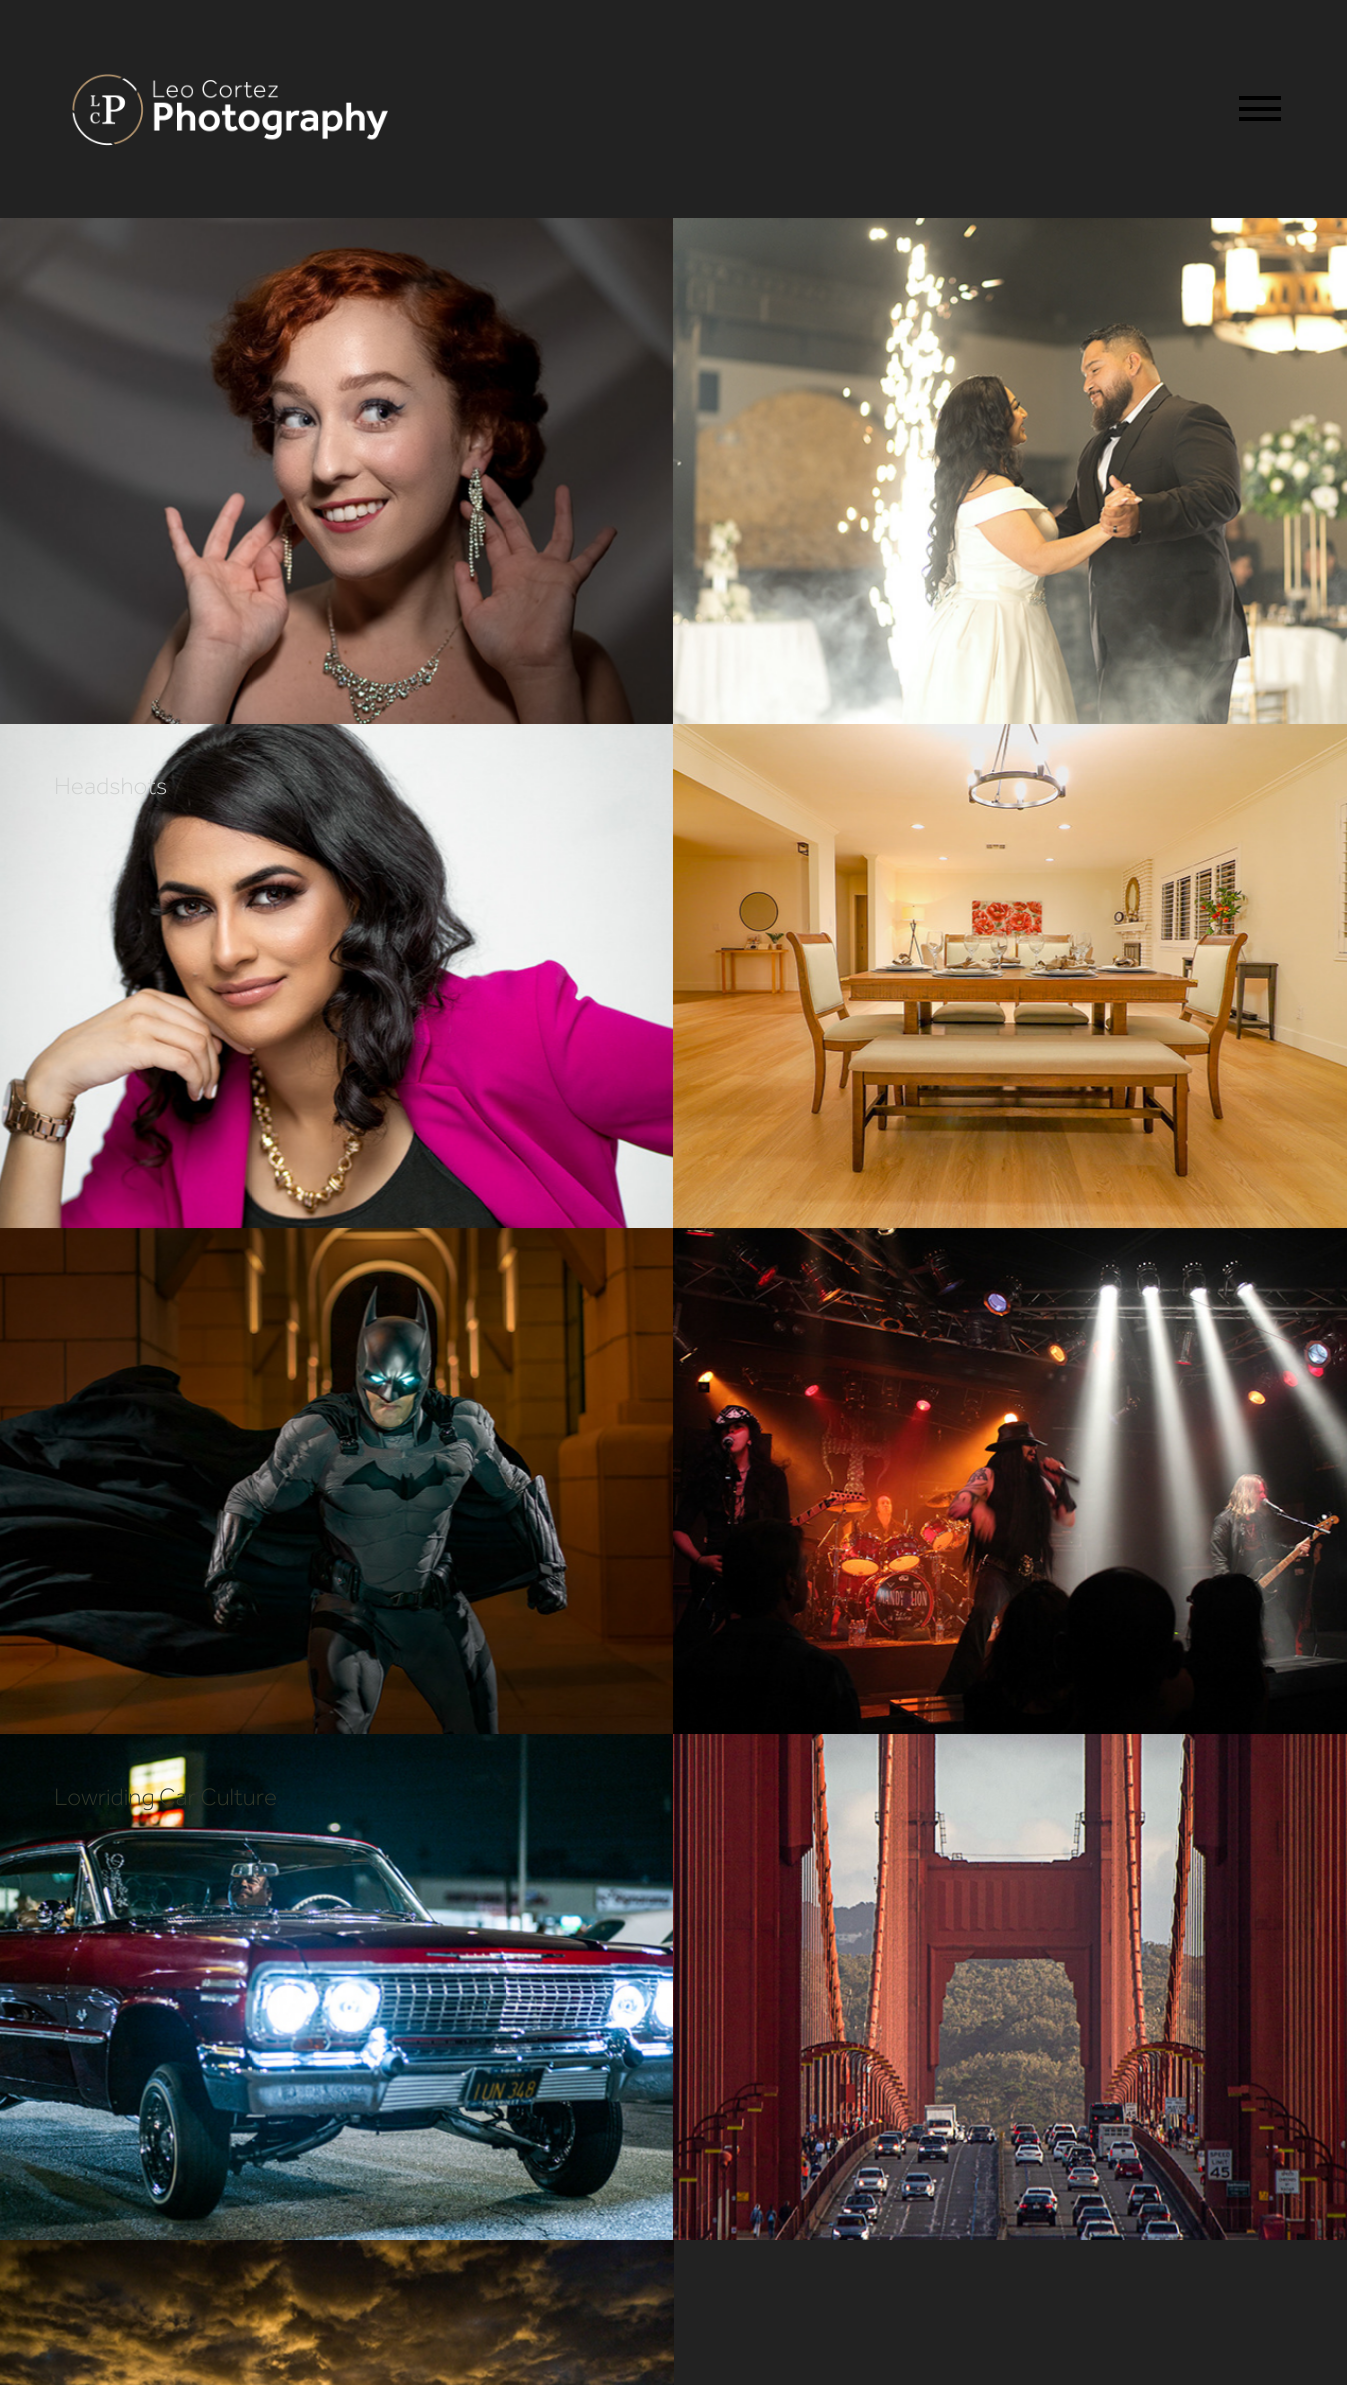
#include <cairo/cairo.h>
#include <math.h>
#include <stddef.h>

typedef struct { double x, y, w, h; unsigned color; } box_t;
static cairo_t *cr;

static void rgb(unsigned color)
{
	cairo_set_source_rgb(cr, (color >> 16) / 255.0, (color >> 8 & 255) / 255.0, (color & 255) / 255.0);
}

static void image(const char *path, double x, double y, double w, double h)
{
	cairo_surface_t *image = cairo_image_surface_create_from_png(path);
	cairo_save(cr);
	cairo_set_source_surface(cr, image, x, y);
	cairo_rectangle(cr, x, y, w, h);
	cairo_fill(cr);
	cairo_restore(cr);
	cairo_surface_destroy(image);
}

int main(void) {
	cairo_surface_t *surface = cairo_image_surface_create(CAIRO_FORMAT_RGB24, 1347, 2385);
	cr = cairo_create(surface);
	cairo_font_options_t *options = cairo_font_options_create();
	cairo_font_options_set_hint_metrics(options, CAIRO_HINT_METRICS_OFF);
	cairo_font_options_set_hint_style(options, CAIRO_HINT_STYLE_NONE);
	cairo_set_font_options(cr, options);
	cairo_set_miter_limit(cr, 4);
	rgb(0x222222);
	cairo_paint(cr);
	image("img/1.png", 72, 74, 316, 72);
	{
		static const box_t items[] = {
			{1239, 96, 42, 4, 0x000000},
			{1239, 107, 42, 4, 0x000000},
			{1239, 117, 42, 4, 0x000000},
		};
		for (size_t i = 0; i < sizeof items / sizeof *items; i++) {
			rgb(items[i].color);
			cairo_rectangle(cr, items[i].x, items[i].y, items[i].w, items[i].h);
			cairo_fill(cr);
		}
	}
	image("img/2.png", 0, 218, 673, 506);
	image("img/3.png", 673, 218, 674, 506);
	image("img/4.png", 0, 724, 673, 504);
	image("img/5.png", 673, 724, 674, 504);
	image("img/6.png", 0, 1228, 673, 506);
	image("img/7.png", 673, 1228, 674, 506);
	image("img/8.png", 0, 1734, 673, 506);
	image("img/9.png", 673, 1734, 674, 506);
	image("img/10.png", 0, 2240, 674, 145);
	cairo_select_font_face(cr, "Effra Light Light", CAIRO_FONT_SLANT_NORMAL, CAIRO_FONT_WEIGHT_NORMAL);
	cairo_set_font_size(cr, 24.5);
	rgb(0xcfd1d0);
	cairo_move_to(cr, 54, 794);
	cairo_show_text(cr, "Headshots");
	rgb(0x303628);
	cairo_move_to(cr, 54, 1805);
	cairo_show_text(cr, "Lowriding Car Culture");
	cairo_surface_write_to_png(surface, "page.png");
	cairo_font_options_destroy(options);
	cairo_destroy(cr);
	cairo_surface_destroy(surface);
	return 0;
}
